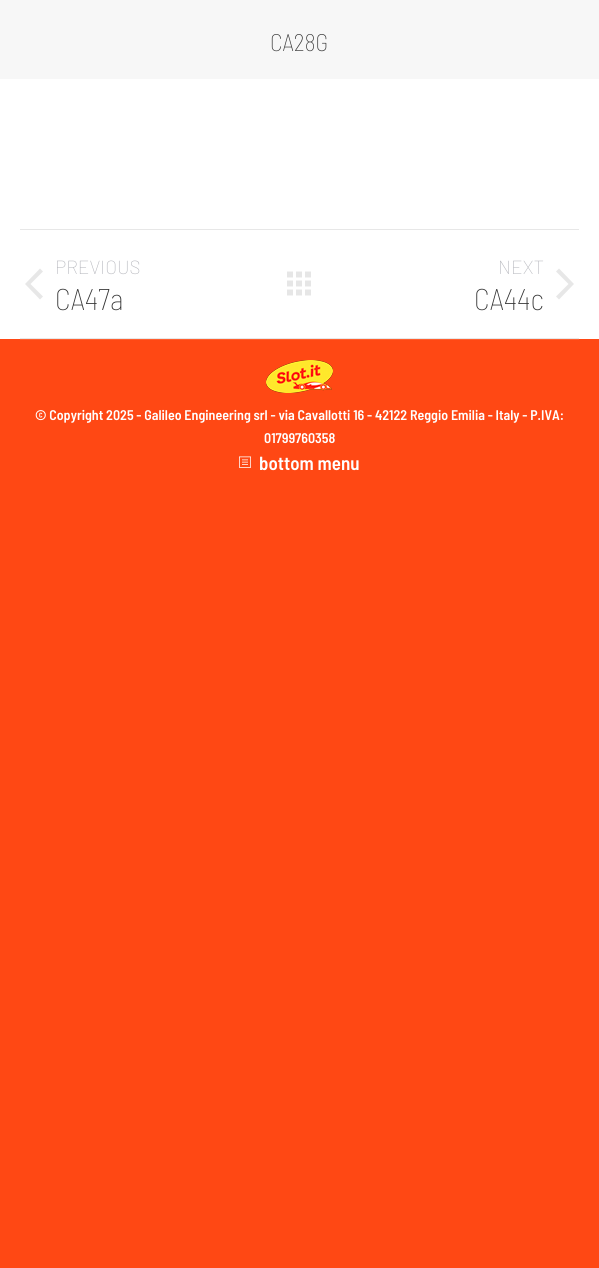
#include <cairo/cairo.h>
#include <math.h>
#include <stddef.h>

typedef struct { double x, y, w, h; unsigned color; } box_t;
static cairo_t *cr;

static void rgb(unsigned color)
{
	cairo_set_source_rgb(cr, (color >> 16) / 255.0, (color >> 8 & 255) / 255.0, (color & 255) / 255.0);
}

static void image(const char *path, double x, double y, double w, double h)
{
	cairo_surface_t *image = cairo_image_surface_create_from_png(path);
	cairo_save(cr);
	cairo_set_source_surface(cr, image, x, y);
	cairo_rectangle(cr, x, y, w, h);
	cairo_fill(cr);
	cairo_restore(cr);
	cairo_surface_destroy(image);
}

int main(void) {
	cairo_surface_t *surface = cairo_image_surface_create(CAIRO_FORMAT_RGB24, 599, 1268);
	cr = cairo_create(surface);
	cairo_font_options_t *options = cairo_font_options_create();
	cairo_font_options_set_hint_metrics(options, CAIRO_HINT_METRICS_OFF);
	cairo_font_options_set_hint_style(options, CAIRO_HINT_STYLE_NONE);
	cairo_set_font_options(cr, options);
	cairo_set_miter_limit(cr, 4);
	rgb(0xff4814);
	cairo_paint(cr);
	{
		static const box_t items[] = {
			{0, 79, 599, 260, 0xffffff},
			{0, 0, 599, 79, 0xf7f7f7},
			{20, 229, 559, 1, 0xe7e7e7},
			{20, 338, 559, 1, 0xe7e7e7},
		};
		for (size_t i = 0; i < sizeof items / sizeof *items; i++) {
			rgb(items[i].color);
			cairo_rectangle(cr, items[i].x, items[i].y, items[i].w, items[i].h);
			cairo_fill(cr);
		}
	}
	cairo_new_path(cr);
	cairo_move_to(cr, 30.5, 284);
	cairo_line_to(cr, 43, 271.5);
	cairo_line_to(cr, 40, 268.5);
	cairo_line_to(cr, 25, 284);
	cairo_line_to(cr, 40, 299.5);
	cairo_line_to(cr, 43, 296.5);
	cairo_close_path(cr);
	cairo_fill(cr);
	image("img/1.png", 287, 271, 24, 25);
	cairo_new_path(cr);
	cairo_move_to(cr, 568.5, 284);
	cairo_line_to(cr, 556, 271.5);
	cairo_line_to(cr, 559, 268.5);
	cairo_line_to(cr, 574, 284);
	cairo_line_to(cr, 559, 299.5);
	cairo_line_to(cr, 556, 296.5);
	cairo_close_path(cr);
	cairo_fill(cr);
	rgb(0xff5e30);
	cairo_rectangle(cr, 20, 339, 559, 1);
	cairo_fill(cr);
	image("img/2.png", 266, 360, 67, 33);
	image("img/3.png", 239, 456, 12, 12);
	cairo_select_font_face(cr, "Barlow Semi Condensed Thin", CAIRO_FONT_SLANT_NORMAL, CAIRO_FONT_WEIGHT_NORMAL);
	cairo_set_font_size(cr, 24);
	rgb(0x333333);
	cairo_move_to(cr, 270, 51);
	cairo_show_text(cr, "CA28G");
	cairo_select_font_face(cr, "Barlow Thin", CAIRO_FONT_SLANT_NORMAL, CAIRO_FONT_WEIGHT_NORMAL);
	cairo_set_font_size(cr, 19);
	rgb(0xb4b5bb);
	cairo_move_to(cr, 55, 274);
	cairo_show_text(cr, "PREVIOUS");
	cairo_select_font_face(cr, "Barlow Semi Condensed Thin", CAIRO_FONT_SLANT_NORMAL, CAIRO_FONT_WEIGHT_NORMAL);
	cairo_set_font_size(cr, 30);
	rgb(0x333333);
	cairo_move_to(cr, 55, 310);
	cairo_show_text(cr, "CA47a");
	cairo_select_font_face(cr, "Barlow Thin", CAIRO_FONT_SLANT_NORMAL, CAIRO_FONT_WEIGHT_NORMAL);
	cairo_set_font_size(cr, 19);
	rgb(0xb4b5bb);
	cairo_move_to(cr, 498, 274);
	cairo_show_text(cr, "NEXT");
	cairo_select_font_face(cr, "Barlow Semi Condensed Thin", CAIRO_FONT_SLANT_NORMAL, CAIRO_FONT_WEIGHT_NORMAL);
	cairo_set_font_size(cr, 30);
	rgb(0x333333);
	cairo_move_to(cr, 474, 310);
	cairo_show_text(cr, "CA44c");
	cairo_select_font_face(cr, "Barlow Semi Condensed SemiBold", CAIRO_FONT_SLANT_NORMAL, CAIRO_FONT_WEIGHT_NORMAL);
	cairo_set_font_size(cr, 14);
	rgb(0xffffff);
	cairo_move_to(cr, 35, 420);
	cairo_show_text(cr, "© Copyright 2025 - Galileo Engineering srl - via Cavallotti 16 - 42122 Reggio Emilia - Italy - P.IVA:");
	cairo_move_to(cr, 264, 443);
	cairo_show_text(cr, "01799760358");
	cairo_set_font_size(cr, 19);
	cairo_move_to(cr, 259, 470);
	cairo_show_text(cr, "bottom menu");
	cairo_surface_write_to_png(surface, "page.png");
	cairo_font_options_destroy(options);
	cairo_destroy(cr);
	cairo_surface_destroy(surface);
	return 0;
}
